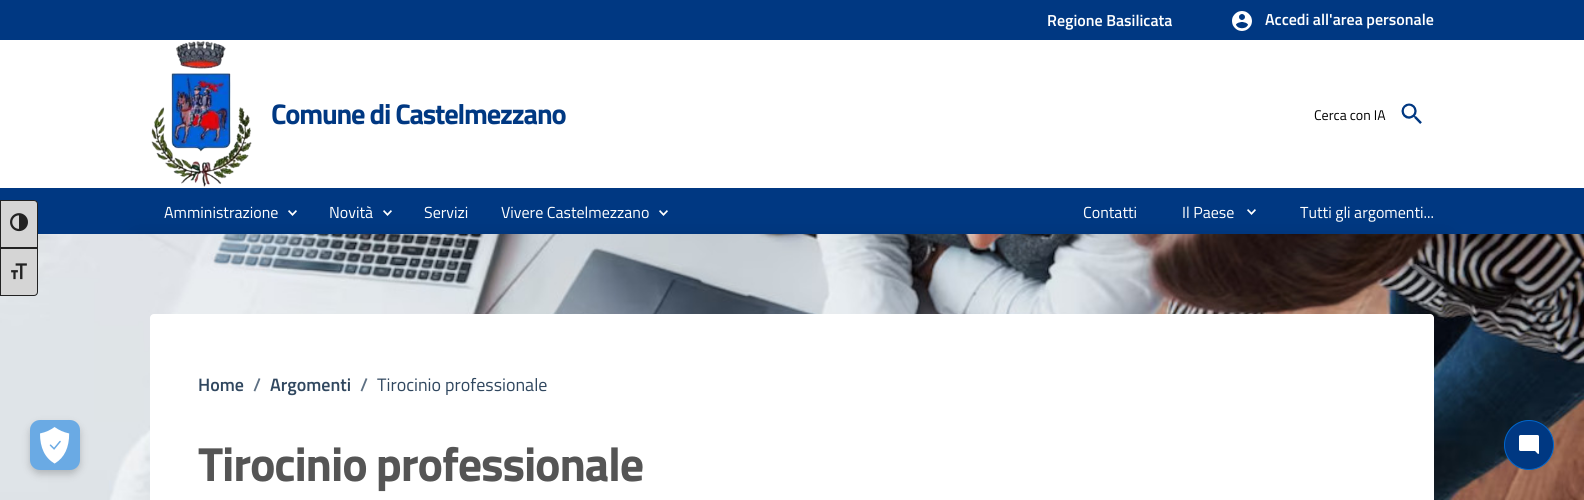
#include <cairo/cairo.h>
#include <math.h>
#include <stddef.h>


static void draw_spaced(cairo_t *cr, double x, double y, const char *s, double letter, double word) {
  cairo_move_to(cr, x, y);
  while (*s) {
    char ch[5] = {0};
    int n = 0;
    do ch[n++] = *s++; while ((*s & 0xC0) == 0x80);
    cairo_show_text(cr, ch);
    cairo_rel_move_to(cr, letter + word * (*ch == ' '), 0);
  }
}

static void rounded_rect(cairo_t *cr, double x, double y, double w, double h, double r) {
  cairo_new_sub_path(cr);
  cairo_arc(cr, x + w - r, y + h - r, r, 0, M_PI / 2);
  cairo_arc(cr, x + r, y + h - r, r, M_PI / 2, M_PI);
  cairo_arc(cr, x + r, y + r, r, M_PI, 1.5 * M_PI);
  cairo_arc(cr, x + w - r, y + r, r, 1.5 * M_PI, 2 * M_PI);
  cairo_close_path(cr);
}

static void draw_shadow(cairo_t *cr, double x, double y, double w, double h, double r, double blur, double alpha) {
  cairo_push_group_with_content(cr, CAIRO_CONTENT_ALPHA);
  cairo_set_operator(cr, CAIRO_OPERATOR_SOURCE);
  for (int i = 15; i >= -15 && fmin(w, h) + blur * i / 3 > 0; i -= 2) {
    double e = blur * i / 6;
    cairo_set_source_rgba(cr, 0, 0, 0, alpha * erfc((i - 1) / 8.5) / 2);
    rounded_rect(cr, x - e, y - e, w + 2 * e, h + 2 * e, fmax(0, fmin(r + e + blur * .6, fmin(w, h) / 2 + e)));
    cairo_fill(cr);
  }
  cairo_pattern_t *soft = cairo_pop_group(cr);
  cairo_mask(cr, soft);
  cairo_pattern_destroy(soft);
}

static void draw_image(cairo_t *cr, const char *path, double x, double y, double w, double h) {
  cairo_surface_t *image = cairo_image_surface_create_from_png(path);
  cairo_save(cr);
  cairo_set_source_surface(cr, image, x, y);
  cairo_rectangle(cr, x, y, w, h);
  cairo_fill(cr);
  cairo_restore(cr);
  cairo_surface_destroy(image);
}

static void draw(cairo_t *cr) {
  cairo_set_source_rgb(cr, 1, 1, 1);
  cairo_paint(cr);
  cairo_set_source_rgb(cr, 0, 56 / 255.0, 130 / 255.0);
  cairo_rectangle(cr, 0, 188, 1584, 46);
  cairo_fill(cr);
  draw_image(cr, "images/6.png", 288, 210, 9, 6);
  draw_image(cr, "images/6.png", 383, 210, 9, 6);
  draw_image(cr, "images/6.png", 659, 210, 9, 6);
  cairo_set_source_rgb(cr, 0, 0, 0);
  draw_shadow(cr, 136, 236, 1312, 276, 0, 10, 0.1);
  draw_image(cr, "images/8.png", 0, 234, 1584, 266);
  cairo_set_source_rgb(cr, 213 / 255.0, 213 / 255.0, 213 / 255.0);
  cairo_new_path(cr);
  cairo_move_to(cr, 0.5, 200.5);
  cairo_line_to(cr, 34, 200.5);
  cairo_curve_to(cr, 36, 200.5, 37.5, 202, 37.5, 204);
  cairo_line_to(cr, 37.5, 247.5);
  cairo_line_to(cr, 0.5, 247.5);
  cairo_close_path(cr);
  cairo_fill_preserve(cr);
  cairo_set_source_rgb(cr, 34 / 255.0, 34 / 255.0, 34 / 255.0);
  cairo_set_line_width(cr, 1);
  cairo_stroke(cr);
  draw_image(cr, "images/1.png", 10, 213, 18, 19);
  cairo_set_source_rgb(cr, 213 / 255.0, 213 / 255.0, 213 / 255.0);
  cairo_new_path(cr);
  cairo_move_to(cr, 0.5, 248.5);
  cairo_line_to(cr, 37.5, 248.5);
  cairo_line_to(cr, 37.5, 292);
  cairo_curve_to(cr, 37.5, 294, 36, 295.5, 34, 295.5);
  cairo_line_to(cr, 0.5, 295.5);
  cairo_close_path(cr);
  cairo_fill_preserve(cr);
  cairo_set_source_rgb(cr, 34 / 255.0, 34 / 255.0, 34 / 255.0);
  cairo_stroke(cr);
  draw_image(cr, "images/2.png", 11, 263, 16, 17);
  cairo_set_source_rgb(cr, 0, 56 / 255.0, 130 / 255.0);
  cairo_rectangle(cr, 0, 0, 1584, 40);
  cairo_fill(cr);
  draw_image(cr, "images/3.png", 1232, 11, 20, 20);
  draw_image(cr, "images/4.png", 151, 41, 101, 146);
  draw_image(cr, "images/5.png", 1401, 103, 21, 21);
  draw_image(cr, "images/7.png", 1247, 209, 9, 6);
  cairo_set_source_rgb(cr, 1, 1, 1);
  rounded_rect(cr, 150, 314, 1284, 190, 4);
  cairo_fill(cr);
  cairo_set_source_rgb(cr, 0, 56 / 255.0, 130 / 255.0);
  cairo_arc(cr, 1529, 445, 24.5, 0, 2 * M_PI);
  cairo_fill_preserve(cr);
  cairo_set_source_rgb(cr, 0, 102 / 255.0, 204 / 255.0);
  cairo_stroke(cr);
  draw_image(cr, "images/9.png", 1519, 435, 20, 19);
  cairo_set_source_rgb(cr, 0, 0, 0);
  draw_shadow(cr, 30, 424, 50, 50, 10, 4, 0.2);
  cairo_set_source_rgb(cr, 106 / 255.0, 170 / 255.0, 228 / 255.0);
  rounded_rect(cr, 30, 420, 50, 50, 10);
  cairo_fill(cr);
  draw_image(cr, "images/10.png", 40, 427, 30, 37);
  cairo_select_font_face(cr, "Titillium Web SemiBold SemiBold", CAIRO_FONT_SLANT_NORMAL, CAIRO_FONT_WEIGHT_NORMAL);
  cairo_set_font_size(cr, 16);
  cairo_set_source_rgb(cr, 1, 1, 1);
  cairo_move_to(cr, 1047, 26);
  cairo_show_text(cr, "Regione Basilicata");
  cairo_move_to(cr, 1265, 25);
  cairo_show_text(cr, "Accedi all'area personale");
  cairo_select_font_face(cr, "Titillium Web", CAIRO_FONT_SLANT_NORMAL, CAIRO_FONT_WEIGHT_BOLD);
  cairo_set_font_size(cr, 28.5);
  cairo_set_source_rgb(cr, 0, 56 / 255.0, 130 / 255.0);
  draw_spaced(cr, 271, 124, "Comune di Castelmezzano", -1.2, 0);
  cairo_select_font_face(cr, "Titillium Web", CAIRO_FONT_SLANT_NORMAL, CAIRO_FONT_WEIGHT_NORMAL);
  cairo_set_font_size(cr, 14);
  cairo_set_source_rgb(cr, 0, 0, 0);
  cairo_move_to(cr, 1314, 120);
  cairo_show_text(cr, "Cerca con IA");
  cairo_set_font_size(cr, 16);
  cairo_set_source_rgb(cr, 1, 1, 1);
  cairo_move_to(cr, 164, 218);
  cairo_show_text(cr, "Amministrazione");
  cairo_move_to(cr, 329, 218);
  cairo_show_text(cr, "Novità");
  cairo_move_to(cr, 424, 218);
  cairo_show_text(cr, "Servizi");
  cairo_move_to(cr, 501, 218);
  cairo_show_text(cr, "Vivere Castelmezzano");
  cairo_move_to(cr, 1083, 218);
  cairo_show_text(cr, "Contatti");
  cairo_move_to(cr, 1182, 218);
  cairo_show_text(cr, "Il Paese");
  cairo_move_to(cr, 1300, 218);
  cairo_show_text(cr, "Tutti gli argomenti...");
  cairo_select_font_face(cr, "Titillium Web SemiBold SemiBold", CAIRO_FONT_SLANT_NORMAL, CAIRO_FONT_WEIGHT_NORMAL);
  cairo_set_font_size(cr, 18);
  cairo_set_source_rgb(cr, 48 / 255.0, 71 / 255.0, 95 / 255.0);
  cairo_move_to(cr, 198, 391);
  cairo_show_text(cr, "Home");
  cairo_set_source_rgb(cr, 93 / 255.0, 112 / 255.0, 131 / 255.0);
  cairo_move_to(cr, 253, 391);
  cairo_show_text(cr, "/");
  cairo_set_source_rgb(cr, 48 / 255.0, 71 / 255.0, 95 / 255.0);
  cairo_move_to(cr, 270, 391);
  cairo_show_text(cr, "Argomenti");
  cairo_set_source_rgb(cr, 93 / 255.0, 112 / 255.0, 131 / 255.0);
  cairo_move_to(cr, 360, 391);
  cairo_show_text(cr, "/");
  cairo_select_font_face(cr, "Titillium Web", CAIRO_FONT_SLANT_NORMAL, CAIRO_FONT_WEIGHT_NORMAL);
  cairo_set_source_rgb(cr, 48 / 255.0, 71 / 255.0, 95 / 255.0);
  cairo_move_to(cr, 377, 391);
  cairo_show_text(cr, "Tirocinio professionale");
  cairo_select_font_face(cr, "Titillium Web", CAIRO_FONT_SLANT_NORMAL, CAIRO_FONT_WEIGHT_BOLD);
  cairo_set_font_size(cr, 48);
  cairo_set_source_rgb(cr, 85 / 255.0, 85 / 255.0, 85 / 255.0);
  draw_spaced(cr, 198, 481, "Tirocinio professionale", -1.2, 0);
}

int main(void) {
  cairo_surface_t *surface = cairo_image_surface_create(CAIRO_FORMAT_RGB24, 1584, 500);
  cairo_t *cr = cairo_create(surface);
  cairo_font_options_t *options = cairo_font_options_create();
  cairo_font_options_set_hint_metrics(options, CAIRO_HINT_METRICS_OFF);
  cairo_font_options_set_hint_style(options, CAIRO_HINT_STYLE_NONE);
  cairo_set_font_options(cr, options);
  cairo_set_miter_limit(cr, 4);
  draw(cr);
  cairo_surface_write_to_png(surface, "out.png");
  cairo_font_options_destroy(options);
  cairo_destroy(cr);
  cairo_surface_destroy(surface);
  return 0;
}
